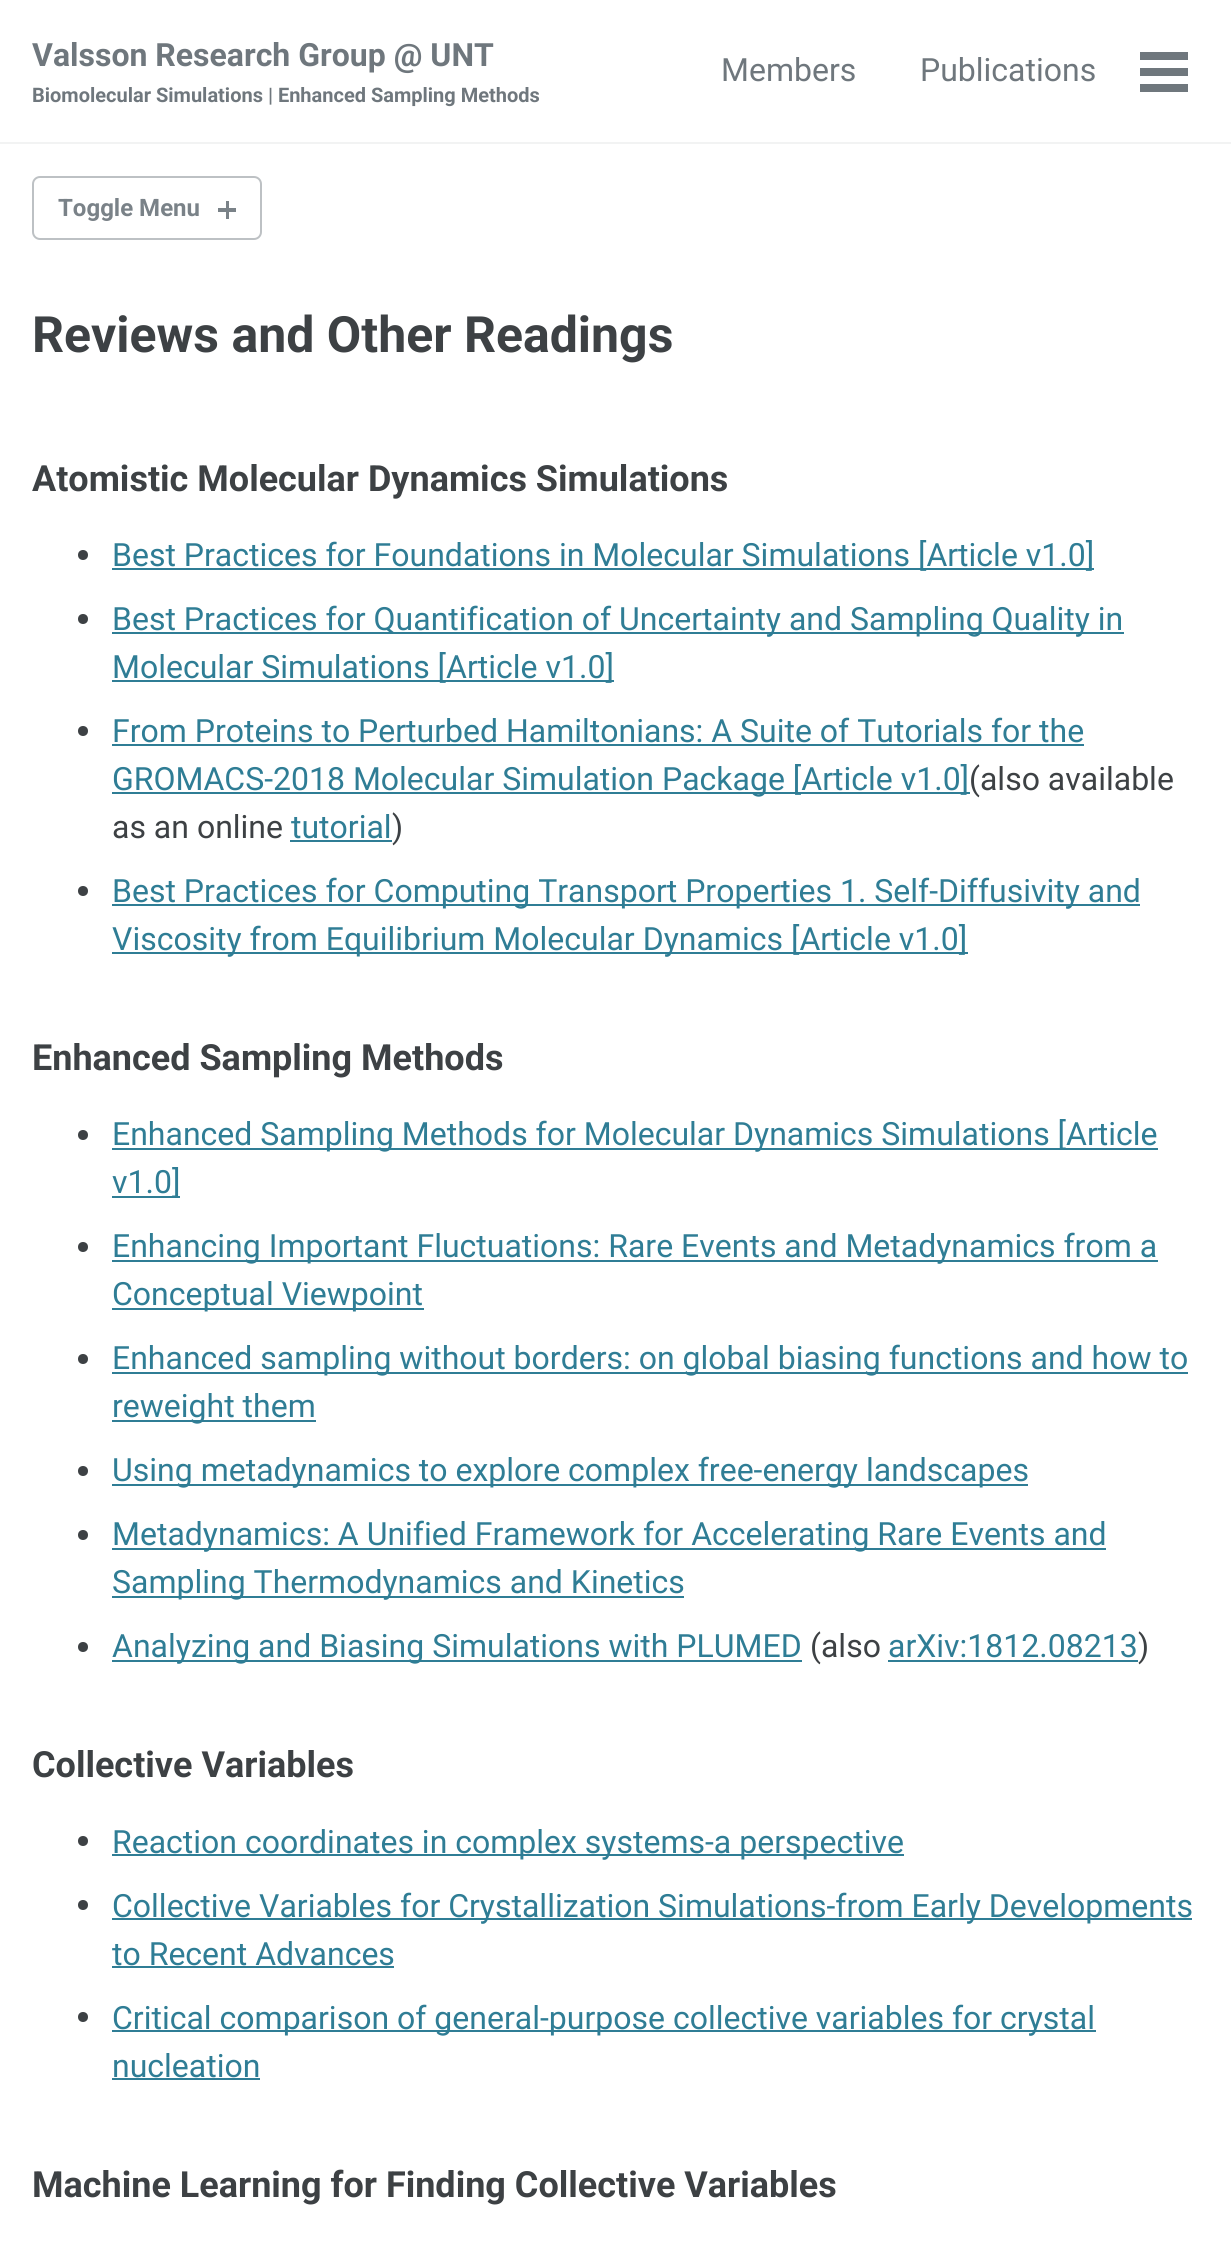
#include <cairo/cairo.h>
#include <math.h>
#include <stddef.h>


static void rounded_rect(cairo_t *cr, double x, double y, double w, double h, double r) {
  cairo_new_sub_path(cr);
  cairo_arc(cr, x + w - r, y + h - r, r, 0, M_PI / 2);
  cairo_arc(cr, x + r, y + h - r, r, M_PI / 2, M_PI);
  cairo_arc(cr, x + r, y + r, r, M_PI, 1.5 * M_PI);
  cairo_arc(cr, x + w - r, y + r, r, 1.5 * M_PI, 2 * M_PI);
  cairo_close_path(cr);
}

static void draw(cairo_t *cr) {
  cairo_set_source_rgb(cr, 1, 1, 1);
  cairo_paint(cr);
  cairo_set_source_rgb(cr, 242 / 255.0, 243 / 255.0, 243 / 255.0);
  cairo_rectangle(cr, 0, 142, 1231, 2);
  cairo_fill(cr);
  cairo_set_source_rgb(cr, 111 / 255.0, 119 / 255.0, 125 / 255.0);
  cairo_rectangle(cr, 1140, 68, 48, 8);
  cairo_fill(cr);
  cairo_rectangle(cr, 1140, 52, 48, 8);
  cairo_fill(cr);
  cairo_rectangle(cr, 1140, 84, 48, 8);
  cairo_fill(cr);
  rounded_rect(cr, 33, 177, 228, 62, 7);
  cairo_set_source_rgb(cr, 189 / 255.0, 193 / 255.0, 196 / 255.0);
  cairo_stroke(cr);
  cairo_set_source_rgb(cr, 122 / 255.0, 130 / 255.0, 136 / 255.0);
  cairo_rectangle(cr, 218, 208, 18, 4);
  cairo_fill(cr);
  cairo_rectangle(cr, 226, 201, 3, 18);
  cairo_fill(cr);
  cairo_set_source_rgb(cr, 61 / 255.0, 65 / 255.0, 68 / 255.0);
  cairo_arc(cr, 83, 555, 5, 0, 2 * M_PI);
  cairo_fill(cr);
  cairo_set_source_rgb(cr, 47 / 255.0, 125 / 255.0, 149 / 255.0);
  cairo_rectangle(cr, 112, 568, 982, 2);
  cairo_fill(cr);
  cairo_set_source_rgb(cr, 61 / 255.0, 65 / 255.0, 68 / 255.0);
  cairo_arc(cr, 83, 619, 5, 0, 2 * M_PI);
  cairo_fill(cr);
  cairo_set_source_rgb(cr, 47 / 255.0, 125 / 255.0, 149 / 255.0);
  cairo_rectangle(cr, 112, 632, 1012, 2);
  cairo_fill(cr);
  cairo_rectangle(cr, 112, 680, 502, 2);
  cairo_fill(cr);
  cairo_set_source_rgb(cr, 61 / 255.0, 65 / 255.0, 68 / 255.0);
  cairo_arc(cr, 83, 731, 5, 0, 2 * M_PI);
  cairo_fill(cr);
  cairo_set_source_rgb(cr, 47 / 255.0, 125 / 255.0, 149 / 255.0);
  cairo_rectangle(cr, 112, 744, 972, 2);
  cairo_fill(cr);
  cairo_rectangle(cr, 112, 792, 858, 2);
  cairo_fill(cr);
  cairo_rectangle(cr, 290, 840, 102, 2);
  cairo_fill(cr);
  cairo_set_source_rgb(cr, 61 / 255.0, 65 / 255.0, 68 / 255.0);
  cairo_arc(cr, 83, 891, 5, 0, 2 * M_PI);
  cairo_fill(cr);
  cairo_set_source_rgb(cr, 47 / 255.0, 125 / 255.0, 149 / 255.0);
  cairo_rectangle(cr, 112, 904, 1028, 2);
  cairo_fill(cr);
  cairo_rectangle(cr, 112, 952, 856, 2);
  cairo_fill(cr);
  cairo_set_source_rgb(cr, 61 / 255.0, 65 / 255.0, 68 / 255.0);
  cairo_arc(cr, 83, 1135, 5, 0, 2 * M_PI);
  cairo_fill(cr);
  cairo_set_source_rgb(cr, 47 / 255.0, 125 / 255.0, 149 / 255.0);
  cairo_rectangle(cr, 112, 1148, 1046, 2);
  cairo_fill(cr);
  cairo_rectangle(cr, 112, 1196, 68, 2);
  cairo_fill(cr);
  cairo_set_source_rgb(cr, 61 / 255.0, 65 / 255.0, 68 / 255.0);
  cairo_arc(cr, 83, 1247, 5, 0, 2 * M_PI);
  cairo_fill(cr);
  cairo_set_source_rgb(cr, 47 / 255.0, 125 / 255.0, 149 / 255.0);
  cairo_rectangle(cr, 112, 1260, 1046, 2);
  cairo_fill(cr);
  cairo_rectangle(cr, 112, 1308, 312, 2);
  cairo_fill(cr);
  cairo_set_source_rgb(cr, 61 / 255.0, 65 / 255.0, 68 / 255.0);
  cairo_arc(cr, 83, 1359, 5, 0, 2 * M_PI);
  cairo_fill(cr);
  cairo_set_source_rgb(cr, 47 / 255.0, 125 / 255.0, 149 / 255.0);
  cairo_rectangle(cr, 112, 1372, 1076, 2);
  cairo_fill(cr);
  cairo_rectangle(cr, 112, 1420, 204, 2);
  cairo_fill(cr);
  cairo_set_source_rgb(cr, 61 / 255.0, 65 / 255.0, 68 / 255.0);
  cairo_arc(cr, 83, 1471, 5, 0, 2 * M_PI);
  cairo_fill(cr);
  cairo_set_source_rgb(cr, 47 / 255.0, 125 / 255.0, 149 / 255.0);
  cairo_rectangle(cr, 112, 1484, 916, 2);
  cairo_fill(cr);
  cairo_set_source_rgb(cr, 61 / 255.0, 65 / 255.0, 68 / 255.0);
  cairo_arc(cr, 83, 1535, 5, 0, 2 * M_PI);
  cairo_fill(cr);
  cairo_set_source_rgb(cr, 47 / 255.0, 125 / 255.0, 149 / 255.0);
  cairo_rectangle(cr, 112, 1548, 994, 2);
  cairo_fill(cr);
  cairo_rectangle(cr, 112, 1596, 572, 2);
  cairo_fill(cr);
  cairo_set_source_rgb(cr, 61 / 255.0, 65 / 255.0, 68 / 255.0);
  cairo_arc(cr, 83, 1647, 5, 0, 2 * M_PI);
  cairo_fill(cr);
  cairo_set_source_rgb(cr, 47 / 255.0, 125 / 255.0, 149 / 255.0);
  cairo_rectangle(cr, 112, 1660, 690, 2);
  cairo_fill(cr);
  cairo_rectangle(cr, 888, 1660, 250, 2);
  cairo_fill(cr);
  cairo_set_source_rgb(cr, 61 / 255.0, 65 / 255.0, 68 / 255.0);
  cairo_arc(cr, 83, 1841, 5, 0, 2 * M_PI);
  cairo_fill(cr);
  cairo_set_source_rgb(cr, 47 / 255.0, 125 / 255.0, 149 / 255.0);
  cairo_rectangle(cr, 112, 1854, 792, 2);
  cairo_fill(cr);
  cairo_set_source_rgb(cr, 61 / 255.0, 65 / 255.0, 68 / 255.0);
  cairo_arc(cr, 83, 1905, 5, 0, 2 * M_PI);
  cairo_fill(cr);
  cairo_set_source_rgb(cr, 47 / 255.0, 125 / 255.0, 149 / 255.0);
  cairo_rectangle(cr, 112, 1918, 1080, 2);
  cairo_fill(cr);
  cairo_rectangle(cr, 112, 1966, 282, 2);
  cairo_fill(cr);
  cairo_set_source_rgb(cr, 61 / 255.0, 65 / 255.0, 68 / 255.0);
  cairo_arc(cr, 83, 2017, 5, 0, 2 * M_PI);
  cairo_fill(cr);
  cairo_set_source_rgb(cr, 47 / 255.0, 125 / 255.0, 149 / 255.0);
  cairo_rectangle(cr, 112, 2030, 984, 2);
  cairo_fill(cr);
  cairo_rectangle(cr, 112, 2078, 148, 2);
  cairo_fill(cr);
  cairo_select_font_face(cr, "Roboto", CAIRO_FONT_SLANT_NORMAL, CAIRO_FONT_WEIGHT_BOLD);
  cairo_set_font_size(cr, 32);
  cairo_set_source_rgb(cr, 111 / 255.0, 119 / 255.0, 125 / 255.0);
  cairo_move_to(cr, 32, 66);
  cairo_show_text(cr, "Valsson Research Group @ UNT");
  cairo_set_font_size(cr, 20);
  cairo_move_to(cr, 32, 102);
  cairo_show_text(cr, "Biomolecular Simulations | Enhanced Sampling Methods");
  cairo_select_font_face(cr, "Roboto", CAIRO_FONT_SLANT_NORMAL, CAIRO_FONT_WEIGHT_NORMAL);
  cairo_set_font_size(cr, 32);
  cairo_move_to(cr, 721, 81);
  cairo_show_text(cr, "Members");
  cairo_move_to(cr, 920, 81);
  cairo_show_text(cr, "Publications");
  cairo_select_font_face(cr, "Roboto", CAIRO_FONT_SLANT_NORMAL, CAIRO_FONT_WEIGHT_BOLD);
  cairo_set_font_size(cr, 24);
  cairo_set_source_rgb(cr, 122 / 255.0, 130 / 255.0, 136 / 255.0);
  cairo_move_to(cr, 58, 216);
  cairo_show_text(cr, "Toggle Menu");
  cairo_set_font_size(cr, 50);
  cairo_set_source_rgb(cr, 61 / 255.0, 65 / 255.0, 68 / 255.0);
  cairo_move_to(cr, 32, 352);
  cairo_show_text(cr, "Reviews and Other Readings");
  cairo_set_font_size(cr, 36);
  cairo_move_to(cr, 32, 491);
  cairo_show_text(cr, "Atomistic Molecular Dynamics Simulations");
  cairo_select_font_face(cr, "Roboto", CAIRO_FONT_SLANT_NORMAL, CAIRO_FONT_WEIGHT_NORMAL);
  cairo_set_font_size(cr, 32);
  cairo_set_source_rgb(cr, 47 / 255.0, 125 / 255.0, 149 / 255.0);
  cairo_move_to(cr, 112, 566);
  cairo_show_text(cr, "Best Practices for Foundations in Molecular Simulations [Article v1.0]");
  cairo_move_to(cr, 112, 630);
  cairo_show_text(cr, "Best Practices for Quantification of Uncertainty and Sampling Quality in");
  cairo_move_to(cr, 112, 678);
  cairo_show_text(cr, "Molecular Simulations [Article v1.0]");
  cairo_move_to(cr, 112, 742);
  cairo_show_text(cr, "From Proteins to Perturbed Hamiltonians: A Suite of Tutorials for the");
  cairo_move_to(cr, 112, 790);
  cairo_show_text(cr, "GROMACS-2018 Molecular Simulation Package [Article v1.0]");
  cairo_set_source_rgb(cr, 61 / 255.0, 65 / 255.0, 68 / 255.0);
  cairo_move_to(cr, 969, 790);
  cairo_show_text(cr, "(also available");
  cairo_move_to(cr, 112, 838);
  cairo_show_text(cr, "as an online");
  cairo_set_source_rgb(cr, 47 / 255.0, 125 / 255.0, 149 / 255.0);
  cairo_move_to(cr, 291, 838);
  cairo_show_text(cr, "tutorial");
  cairo_set_source_rgb(cr, 61 / 255.0, 65 / 255.0, 68 / 255.0);
  cairo_move_to(cr, 392, 838);
  cairo_show_text(cr, ")");
  cairo_set_source_rgb(cr, 47 / 255.0, 125 / 255.0, 149 / 255.0);
  cairo_move_to(cr, 112, 902);
  cairo_show_text(cr, "Best Practices for Computing Transport Properties 1. Self-Diffusivity and");
  cairo_move_to(cr, 112, 950);
  cairo_show_text(cr, "Viscosity from Equilibrium Molecular Dynamics [Article v1.0]");
  cairo_select_font_face(cr, "Roboto", CAIRO_FONT_SLANT_NORMAL, CAIRO_FONT_WEIGHT_BOLD);
  cairo_set_font_size(cr, 36);
  cairo_set_source_rgb(cr, 61 / 255.0, 65 / 255.0, 68 / 255.0);
  cairo_move_to(cr, 32, 1070);
  cairo_show_text(cr, "Enhanced Sampling Methods");
  cairo_select_font_face(cr, "Roboto", CAIRO_FONT_SLANT_NORMAL, CAIRO_FONT_WEIGHT_NORMAL);
  cairo_set_font_size(cr, 32);
  cairo_set_source_rgb(cr, 47 / 255.0, 125 / 255.0, 149 / 255.0);
  cairo_move_to(cr, 112, 1145);
  cairo_show_text(cr, "Enhanced Sampling Methods for Molecular Dynamics Simulations [Article");
  cairo_move_to(cr, 112, 1193);
  cairo_show_text(cr, "v1.0]");
  cairo_move_to(cr, 112, 1257);
  cairo_show_text(cr, "Enhancing Important Fluctuations: Rare Events and Metadynamics from a");
  cairo_move_to(cr, 112, 1305);
  cairo_show_text(cr, "Conceptual Viewpoint");
  cairo_move_to(cr, 112, 1369);
  cairo_show_text(cr, "Enhanced sampling without borders: on global biasing functions and how to");
  cairo_move_to(cr, 112, 1417);
  cairo_show_text(cr, "reweight them");
  cairo_move_to(cr, 112, 1481);
  cairo_show_text(cr, "Using metadynamics to explore complex free-energy landscapes");
  cairo_move_to(cr, 112, 1545);
  cairo_show_text(cr, "Metadynamics: A Unified Framework for Accelerating Rare Events and");
  cairo_move_to(cr, 112, 1593);
  cairo_show_text(cr, "Sampling Thermodynamics and Kinetics");
  cairo_move_to(cr, 112, 1657);
  cairo_show_text(cr, "Analyzing and Biasing Simulations with PLUMED");
  cairo_set_source_rgb(cr, 61 / 255.0, 65 / 255.0, 68 / 255.0);
  cairo_move_to(cr, 810, 1657);
  cairo_show_text(cr, "(also");
  cairo_set_source_rgb(cr, 47 / 255.0, 125 / 255.0, 149 / 255.0);
  cairo_move_to(cr, 888, 1657);
  cairo_show_text(cr, "arXiv:1812.08213");
  cairo_set_source_rgb(cr, 61 / 255.0, 65 / 255.0, 68 / 255.0);
  cairo_move_to(cr, 1138, 1657);
  cairo_show_text(cr, ")");
  cairo_select_font_face(cr, "Roboto", CAIRO_FONT_SLANT_NORMAL, CAIRO_FONT_WEIGHT_BOLD);
  cairo_set_font_size(cr, 36);
  cairo_move_to(cr, 32, 1777);
  cairo_show_text(cr, "Collective Variables");
  cairo_select_font_face(cr, "Roboto", CAIRO_FONT_SLANT_NORMAL, CAIRO_FONT_WEIGHT_NORMAL);
  cairo_set_font_size(cr, 32);
  cairo_set_source_rgb(cr, 47 / 255.0, 125 / 255.0, 149 / 255.0);
  cairo_move_to(cr, 112, 1853);
  cairo_show_text(cr, "Reaction coordinates in complex systems-a perspective");
  cairo_move_to(cr, 112, 1917);
  cairo_show_text(cr, "Collective Variables for Crystallization Simulations-from Early Developments");
  cairo_move_to(cr, 112, 1965);
  cairo_show_text(cr, "to Recent Advances");
  cairo_move_to(cr, 112, 2029);
  cairo_show_text(cr, "Critical comparison of general-purpose collective variables for crystal");
  cairo_move_to(cr, 112, 2077);
  cairo_show_text(cr, "nucleation");
  cairo_select_font_face(cr, "Roboto", CAIRO_FONT_SLANT_NORMAL, CAIRO_FONT_WEIGHT_BOLD);
  cairo_set_font_size(cr, 36);
  cairo_set_source_rgb(cr, 61 / 255.0, 65 / 255.0, 68 / 255.0);
  cairo_move_to(cr, 32, 2197);
  cairo_show_text(cr, "Machine Learning for Finding Collective Variables");
}

int main(void) {
  cairo_surface_t *surface = cairo_image_surface_create(CAIRO_FORMAT_RGB24, 1231, 2248);
  cairo_t *cr = cairo_create(surface);
  cairo_font_options_t *options = cairo_font_options_create();
  cairo_font_options_set_hint_metrics(options, CAIRO_HINT_METRICS_OFF);
  cairo_font_options_set_hint_style(options, CAIRO_HINT_STYLE_NONE);
  cairo_set_font_options(cr, options);
  cairo_set_miter_limit(cr, 4);
  draw(cr);
  cairo_surface_write_to_png(surface, "out.png");
  cairo_font_options_destroy(options);
  cairo_destroy(cr);
  cairo_surface_destroy(surface);
  return 0;
}
